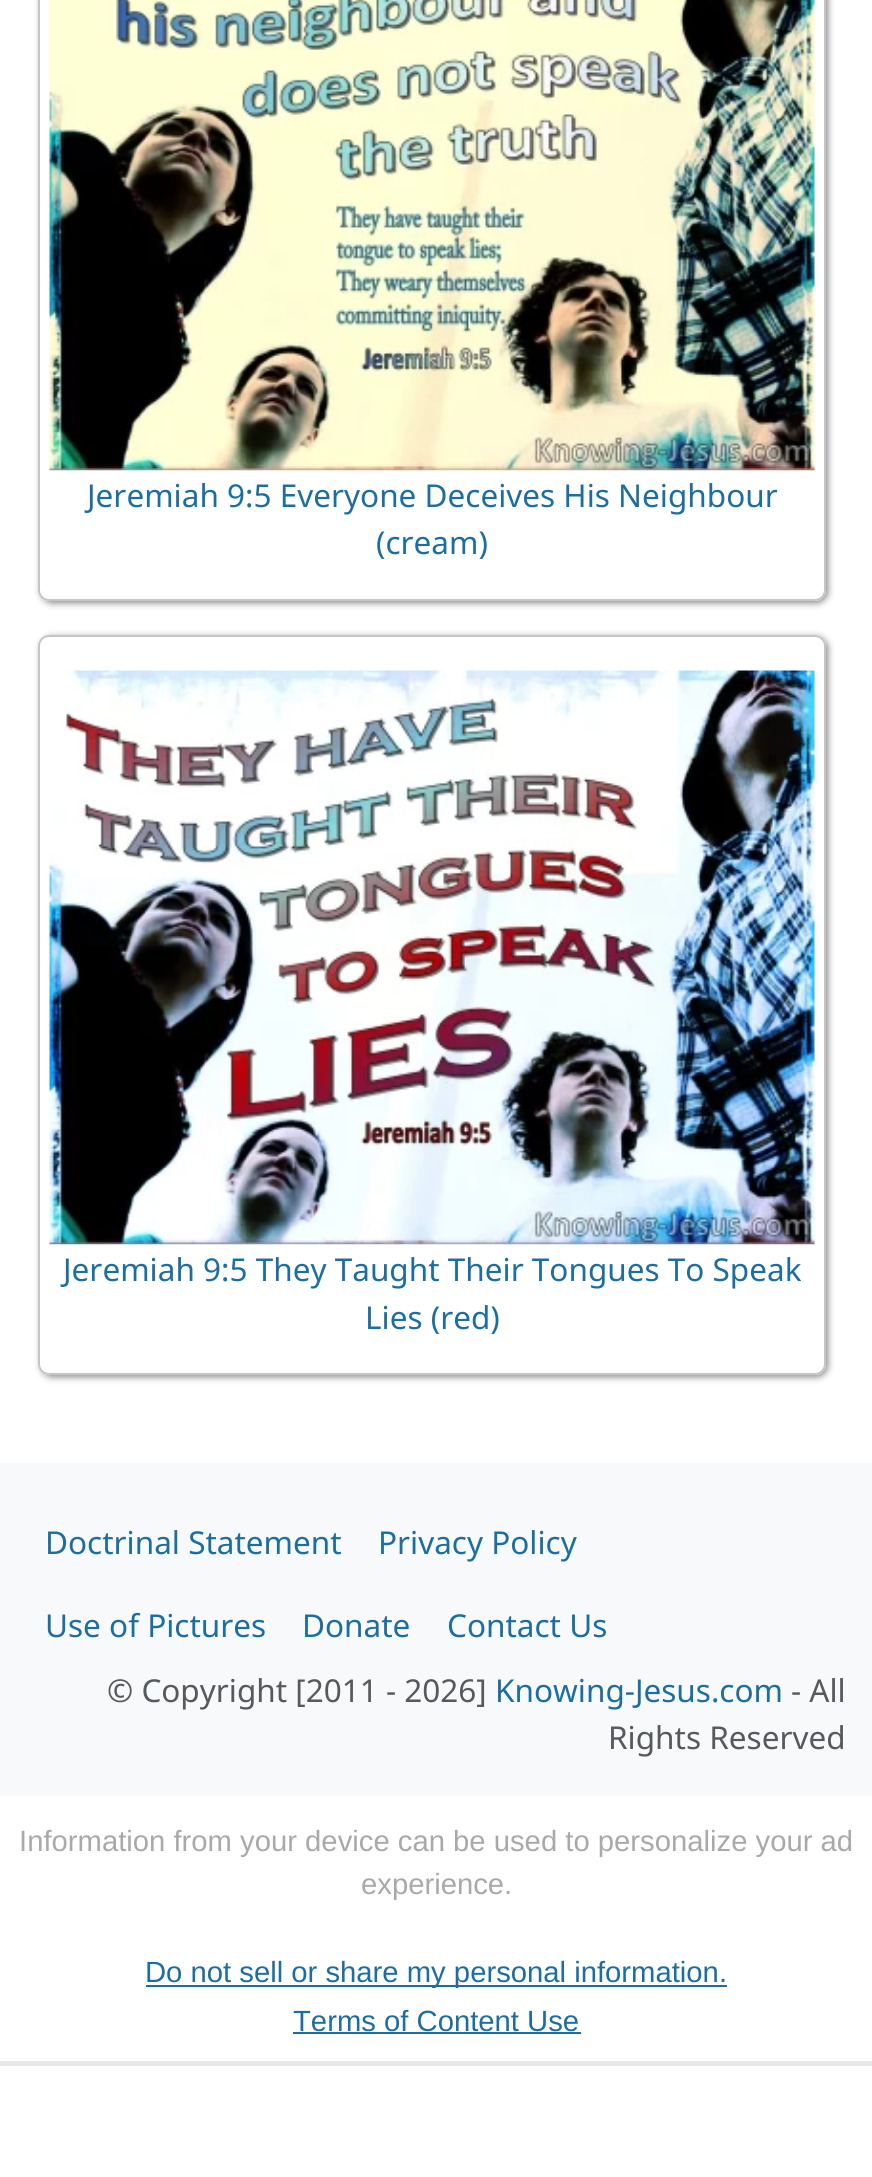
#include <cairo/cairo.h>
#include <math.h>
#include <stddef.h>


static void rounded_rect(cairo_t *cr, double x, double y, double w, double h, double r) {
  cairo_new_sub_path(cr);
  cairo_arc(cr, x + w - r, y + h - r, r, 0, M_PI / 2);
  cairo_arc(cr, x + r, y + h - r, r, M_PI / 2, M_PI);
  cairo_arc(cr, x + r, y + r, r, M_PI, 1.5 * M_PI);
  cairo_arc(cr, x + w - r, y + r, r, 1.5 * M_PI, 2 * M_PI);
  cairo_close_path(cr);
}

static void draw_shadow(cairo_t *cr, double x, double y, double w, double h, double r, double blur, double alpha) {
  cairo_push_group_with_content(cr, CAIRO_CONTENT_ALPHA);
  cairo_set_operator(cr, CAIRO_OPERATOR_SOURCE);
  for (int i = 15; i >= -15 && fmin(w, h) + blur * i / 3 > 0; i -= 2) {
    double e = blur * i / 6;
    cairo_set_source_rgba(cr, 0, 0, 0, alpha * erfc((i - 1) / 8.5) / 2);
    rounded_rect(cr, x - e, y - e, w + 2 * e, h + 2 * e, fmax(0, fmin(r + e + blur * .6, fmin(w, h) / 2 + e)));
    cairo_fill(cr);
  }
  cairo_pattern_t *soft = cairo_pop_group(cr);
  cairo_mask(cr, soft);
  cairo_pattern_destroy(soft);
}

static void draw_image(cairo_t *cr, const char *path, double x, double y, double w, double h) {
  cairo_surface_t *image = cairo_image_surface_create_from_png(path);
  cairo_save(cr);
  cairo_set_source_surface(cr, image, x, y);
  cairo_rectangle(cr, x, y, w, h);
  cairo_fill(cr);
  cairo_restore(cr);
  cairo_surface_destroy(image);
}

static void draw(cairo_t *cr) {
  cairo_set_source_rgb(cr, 1, 1, 1);
  cairo_paint(cr);
  cairo_save(cr);
  cairo_set_fill_rule(cr, CAIRO_FILL_RULE_EVEN_ODD);
  cairo_new_path(cr);
  cairo_move_to(cr, 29, 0);
  cairo_line_to(cr, 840, 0);
  cairo_line_to(cr, 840, 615);
  cairo_line_to(cr, 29, 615);
  cairo_close_path(cr);
  cairo_move_to(cr, 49, -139);
  cairo_line_to(cr, 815, -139);
  cairo_curve_to(cr, 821, -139, 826, -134, 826, -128);
  cairo_line_to(cr, 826, 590);
  cairo_curve_to(cr, 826, 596, 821, 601, 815, 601);
  cairo_line_to(cr, 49, 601);
  cairo_curve_to(cr, 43, 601, 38, 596, 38, 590);
  cairo_line_to(cr, 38, -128);
  cairo_curve_to(cr, 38, -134, 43, -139, 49, -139);
  cairo_close_path(cr);
  cairo_clip(cr);
  cairo_set_source_rgb(cr, 136 / 255.0, 136 / 255.0, 136 / 255.0);
  draw_shadow(cr, 41, -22, 787, 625, 11, 3.5, 1);
  cairo_restore(cr);
  rounded_rect(cr, 39, -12, 786, 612, 10);
  cairo_set_source_rgb(cr, 197 / 255.0, 197 / 255.0, 197 / 255.0);
  cairo_stroke(cr);
  draw_image(cr, "images/1.png", 49, 0, 766, 471);
  cairo_save(cr);
  cairo_set_fill_rule(cr, CAIRO_FILL_RULE_EVEN_ODD);
  cairo_new_path(cr);
  cairo_move_to(cr, 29, 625);
  cairo_line_to(cr, 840, 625);
  cairo_line_to(cr, 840, 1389);
  cairo_line_to(cr, 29, 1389);
  cairo_close_path(cr);
  cairo_move_to(cr, 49, 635);
  cairo_line_to(cr, 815, 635);
  cairo_curve_to(cr, 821, 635, 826, 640, 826, 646);
  cairo_line_to(cr, 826, 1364);
  cairo_curve_to(cr, 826, 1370, 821, 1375, 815, 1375);
  cairo_line_to(cr, 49, 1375);
  cairo_curve_to(cr, 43, 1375, 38, 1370, 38, 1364);
  cairo_line_to(cr, 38, 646);
  cairo_curve_to(cr, 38, 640, 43, 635, 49, 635);
  cairo_close_path(cr);
  cairo_clip(cr);
  cairo_set_source_rgb(cr, 136 / 255.0, 136 / 255.0, 136 / 255.0);
  draw_shadow(cr, 41, 637, 787, 740, 11, 3.5, 1);
  cairo_restore(cr);
  rounded_rect(cr, 39, 636, 786, 738, 10);
  cairo_stroke(cr);
  draw_image(cr, "images/2.png", 49, 670, 766, 575);
  cairo_set_source_rgb(cr, 248 / 255.0, 249 / 255.0, 250 / 255.0);
  cairo_rectangle(cr, 0, 1463, 872, 333);
  cairo_fill(cr);
  cairo_set_source_rgb(cr, 28 / 255.0, 110 / 255.0, 160 / 255.0);
  cairo_rectangle(cr, 146, 1985, 581, 2);
  cairo_fill(cr);
  cairo_rectangle(cr, 293, 2032, 288, 2);
  cairo_fill(cr);
  cairo_set_source_rgb(cr, 231 / 255.0, 231 / 255.0, 231 / 255.0);
  cairo_rectangle(cr, 0, 2061, 872, 5);
  cairo_fill(cr);
  cairo_select_font_face(cr, "Noto Sans", CAIRO_FONT_SLANT_NORMAL, CAIRO_FONT_WEIGHT_NORMAL);
  cairo_set_font_size(cr, 31.5);
  cairo_set_source_rgb(cr, 28 / 255.0, 110 / 255.0, 160 / 255.0);
  cairo_move_to(cr, 87, 507);
  cairo_show_text(cr, "Jeremiah 9:5 Everyone Deceives His Neighbour");
  cairo_move_to(cr, 376, 554);
  cairo_show_text(cr, "(cream)");
  cairo_move_to(cr, 63, 1281);
  cairo_show_text(cr, "Jeremiah 9:5 They Taught Their Tongues To Speak");
  cairo_move_to(cr, 365, 1329);
  cairo_show_text(cr, "Lies (red)");
  cairo_move_to(cr, 45, 1554);
  cairo_show_text(cr, "Doctrinal Statement");
  cairo_move_to(cr, 378, 1554);
  cairo_show_text(cr, "Privacy Policy");
  cairo_move_to(cr, 45, 1637);
  cairo_show_text(cr, "Use of Pictures");
  cairo_move_to(cr, 302, 1637);
  cairo_show_text(cr, "Donate");
  cairo_move_to(cr, 447, 1637);
  cairo_show_text(cr, "Contact Us");
  cairo_set_source_rgb(cr, 87 / 255.0, 90 / 255.0, 93 / 255.0);
  cairo_move_to(cr, 107, 1702);
  cairo_show_text(cr, "© Copyright [2011 - 2026]");
  cairo_set_source_rgb(cr, 28 / 255.0, 110 / 255.0, 160 / 255.0);
  cairo_move_to(cr, 495, 1702);
  cairo_show_text(cr, "Knowing-Jesus.com");
  cairo_set_source_rgb(cr, 87 / 255.0, 90 / 255.0, 93 / 255.0);
  cairo_move_to(cr, 791, 1702);
  cairo_show_text(cr, "- All");
  cairo_move_to(cr, 608, 1749);
  cairo_show_text(cr, "Rights Reserved");
  cairo_select_font_face(cr, "Liberation Sans", CAIRO_FONT_SLANT_NORMAL, CAIRO_FONT_WEIGHT_NORMAL);
  cairo_set_font_size(cr, 29.25);
  cairo_set_source_rgb(cr, 169 / 255.0, 169 / 255.0, 169 / 255.0);
  cairo_move_to(cr, 19, 1851);
  cairo_show_text(cr, "Information from your device can be used to personalize your ad");
  cairo_move_to(cr, 361, 1894);
  cairo_show_text(cr, "experience.");
  cairo_set_source_rgb(cr, 28 / 255.0, 110 / 255.0, 160 / 255.0);
  cairo_move_to(cr, 145, 1982);
  cairo_show_text(cr, "Do not sell or share my personal information.");
  cairo_move_to(cr, 293, 2031);
  cairo_show_text(cr, "Terms of Content Use");
}

int main(void) {
  cairo_surface_t *surface = cairo_image_surface_create(CAIRO_FORMAT_RGB24, 872, 2177);
  cairo_t *cr = cairo_create(surface);
  cairo_font_options_t *options = cairo_font_options_create();
  cairo_font_options_set_hint_metrics(options, CAIRO_HINT_METRICS_OFF);
  cairo_font_options_set_hint_style(options, CAIRO_HINT_STYLE_NONE);
  cairo_set_font_options(cr, options);
  cairo_set_miter_limit(cr, 4);
  draw(cr);
  cairo_surface_write_to_png(surface, "out.png");
  cairo_font_options_destroy(options);
  cairo_destroy(cr);
  cairo_surface_destroy(surface);
  return 0;
}
